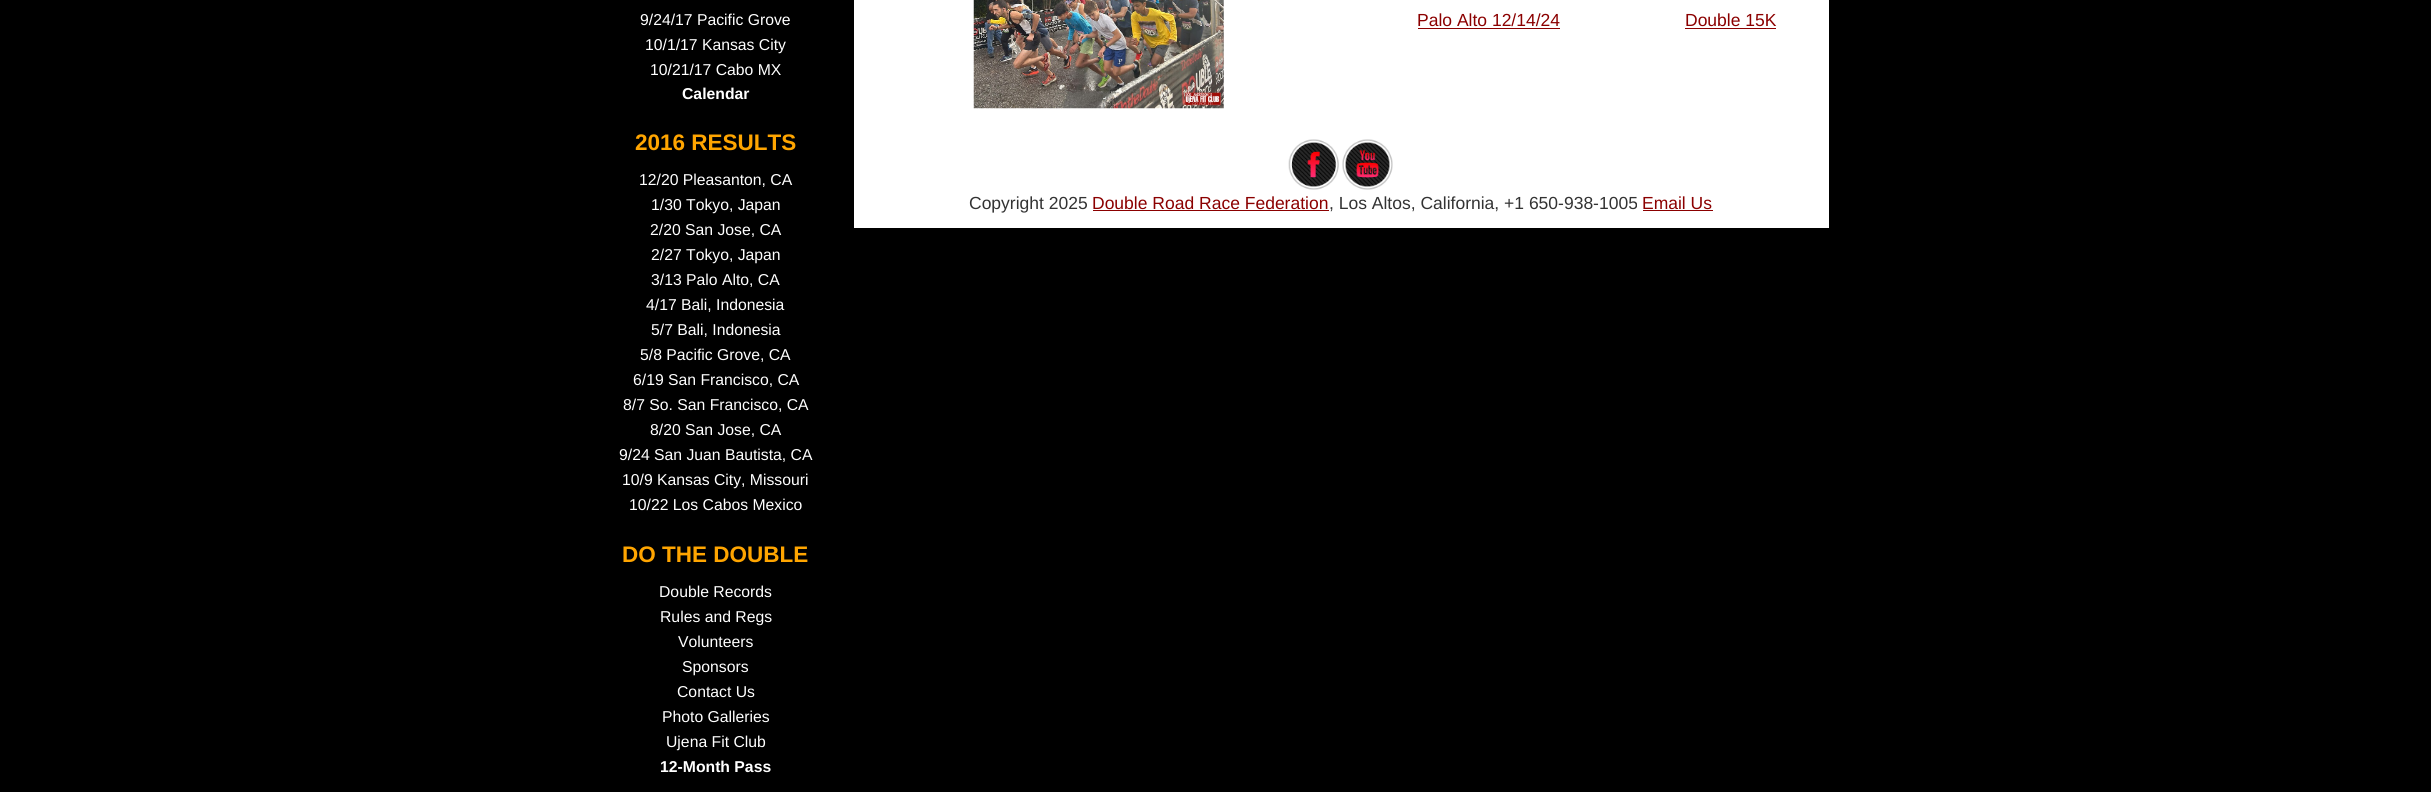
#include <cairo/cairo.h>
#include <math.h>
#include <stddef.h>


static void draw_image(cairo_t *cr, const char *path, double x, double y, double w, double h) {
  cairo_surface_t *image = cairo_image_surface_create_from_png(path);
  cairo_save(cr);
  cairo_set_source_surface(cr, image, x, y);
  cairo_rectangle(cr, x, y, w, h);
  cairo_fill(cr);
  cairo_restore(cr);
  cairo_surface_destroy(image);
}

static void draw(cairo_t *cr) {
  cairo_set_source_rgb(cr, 0, 0, 0);
  cairo_paint(cr);
  cairo_set_source_rgb(cr, 1, 1, 1);
  cairo_rectangle(cr, 854, 0, 975, 228);
  cairo_fill(cr);
  draw_image(cr, "images/1.png", 973, 0, 251, 109);
  cairo_set_source_rgb(cr, 139 / 255.0, 0, 0);
  cairo_rectangle(cr, 1418, 28, 142, 1);
  cairo_fill(cr);
  cairo_rectangle(cr, 1685, 28, 91, 1);
  cairo_fill(cr);
  draw_image(cr, "images/2.png", 1288, 139, 51, 51);
  draw_image(cr, "images/3.png", 1342, 139, 51, 51);
  cairo_rectangle(cr, 1093, 210, 236, 1);
  cairo_fill(cr);
  cairo_rectangle(cr, 1643, 210, 70, 1);
  cairo_fill(cr);
  cairo_select_font_face(cr, "Liberation Sans", CAIRO_FONT_SLANT_NORMAL, CAIRO_FONT_WEIGHT_NORMAL);
  cairo_set_font_size(cr, 15.75);
  cairo_set_source_rgb(cr, 1, 1, 1);
  cairo_move_to(cr, 640, 25);
  cairo_show_text(cr, "9/24/17 Pacific Grove");
  cairo_move_to(cr, 645, 50);
  cairo_show_text(cr, "10/1/17 Kansas City");
  cairo_move_to(cr, 650, 75);
  cairo_show_text(cr, "10/21/17 Cabo MX");
  cairo_select_font_face(cr, "Liberation Sans", CAIRO_FONT_SLANT_NORMAL, CAIRO_FONT_WEIGHT_BOLD);
  cairo_move_to(cr, 682, 99);
  cairo_show_text(cr, "Calendar");
  cairo_set_font_size(cr, 22.5);
  cairo_set_source_rgb(cr, 1, 165 / 255.0, 0);
  cairo_move_to(cr, 635, 150);
  cairo_show_text(cr, "2016 RESULTS");
  cairo_select_font_face(cr, "Liberation Sans", CAIRO_FONT_SLANT_NORMAL, CAIRO_FONT_WEIGHT_NORMAL);
  cairo_set_font_size(cr, 15.75);
  cairo_set_source_rgb(cr, 1, 1, 1);
  cairo_move_to(cr, 639, 185);
  cairo_show_text(cr, "12/20 Pleasanton, CA");
  cairo_move_to(cr, 651, 210);
  cairo_show_text(cr, "1/30 Tokyo, Japan");
  cairo_move_to(cr, 650, 235);
  cairo_show_text(cr, "2/20 San Jose, CA");
  cairo_move_to(cr, 651, 260);
  cairo_show_text(cr, "2/27 Tokyo, Japan");
  cairo_move_to(cr, 651, 285);
  cairo_show_text(cr, "3/13 Palo Alto, CA");
  cairo_move_to(cr, 646, 310);
  cairo_show_text(cr, "4/17 Bali, Indonesia");
  cairo_move_to(cr, 651, 335);
  cairo_show_text(cr, "5/7 Bali, Indonesia");
  cairo_move_to(cr, 640, 360);
  cairo_show_text(cr, "5/8 Pacific Grove, CA");
  cairo_move_to(cr, 633, 385);
  cairo_show_text(cr, "6/19 San Francisco, CA");
  cairo_move_to(cr, 623, 410);
  cairo_show_text(cr, "8/7 So. San Francisco, CA");
  cairo_move_to(cr, 650, 435);
  cairo_show_text(cr, "8/20 San Jose, CA");
  cairo_move_to(cr, 619, 460);
  cairo_show_text(cr, "9/24 San Juan Bautista, CA");
  cairo_move_to(cr, 622, 485);
  cairo_show_text(cr, "10/9 Kansas City, Missouri");
  cairo_move_to(cr, 629, 510);
  cairo_show_text(cr, "10/22 Los Cabos Mexico");
  cairo_select_font_face(cr, "Liberation Sans", CAIRO_FONT_SLANT_NORMAL, CAIRO_FONT_WEIGHT_BOLD);
  cairo_set_font_size(cr, 22.5);
  cairo_set_source_rgb(cr, 1, 165 / 255.0, 0);
  cairo_move_to(cr, 622, 562);
  cairo_show_text(cr, "DO THE DOUBLE");
  cairo_select_font_face(cr, "Liberation Sans", CAIRO_FONT_SLANT_NORMAL, CAIRO_FONT_WEIGHT_NORMAL);
  cairo_set_font_size(cr, 15.75);
  cairo_set_source_rgb(cr, 1, 1, 1);
  cairo_move_to(cr, 659, 597);
  cairo_show_text(cr, "Double Records");
  cairo_move_to(cr, 660, 622);
  cairo_show_text(cr, "Rules and Regs");
  cairo_move_to(cr, 678, 647);
  cairo_show_text(cr, "Volunteers");
  cairo_move_to(cr, 682, 672);
  cairo_show_text(cr, "Sponsors");
  cairo_move_to(cr, 677, 697);
  cairo_show_text(cr, "Contact Us");
  cairo_move_to(cr, 662, 722);
  cairo_show_text(cr, "Photo Galleries");
  cairo_move_to(cr, 666, 747);
  cairo_show_text(cr, "Ujena Fit Club");
  cairo_select_font_face(cr, "Liberation Sans", CAIRO_FONT_SLANT_NORMAL, CAIRO_FONT_WEIGHT_BOLD);
  cairo_move_to(cr, 660, 772);
  cairo_show_text(cr, "12-Month Pass");
  cairo_select_font_face(cr, "Liberation Sans", CAIRO_FONT_SLANT_NORMAL, CAIRO_FONT_WEIGHT_NORMAL);
  cairo_set_font_size(cr, 17.5);
  cairo_set_source_rgb(cr, 139 / 255.0, 0, 0);
  cairo_move_to(cr, 1417, 26);
  cairo_show_text(cr, "Palo Alto 12/14/24");
  cairo_move_to(cr, 1685, 26);
  cairo_show_text(cr, "Double 15K");
  cairo_set_source_rgb(cr, 51 / 255.0, 51 / 255.0, 51 / 255.0);
  cairo_move_to(cr, 969, 209);
  cairo_show_text(cr, "Copyright 2025");
  cairo_set_source_rgb(cr, 139 / 255.0, 0, 0);
  cairo_move_to(cr, 1092, 209);
  cairo_show_text(cr, "Double Road Race Federation");
  cairo_set_source_rgb(cr, 51 / 255.0, 51 / 255.0, 51 / 255.0);
  cairo_move_to(cr, 1329, 209);
  cairo_show_text(cr, ", Los Altos, California, +1 650-938-1005");
  cairo_set_source_rgb(cr, 139 / 255.0, 0, 0);
  cairo_move_to(cr, 1642, 209);
  cairo_show_text(cr, "Email Us");
}

int main(void) {
  cairo_surface_t *surface = cairo_image_surface_create(CAIRO_FORMAT_RGB24, 2431, 792);
  cairo_t *cr = cairo_create(surface);
  cairo_font_options_t *options = cairo_font_options_create();
  cairo_font_options_set_hint_metrics(options, CAIRO_HINT_METRICS_OFF);
  cairo_font_options_set_hint_style(options, CAIRO_HINT_STYLE_NONE);
  cairo_set_font_options(cr, options);
  cairo_set_miter_limit(cr, 4);
  draw(cr);
  cairo_surface_write_to_png(surface, "out.png");
  cairo_font_options_destroy(options);
  cairo_destroy(cr);
  cairo_surface_destroy(surface);
  return 0;
}
